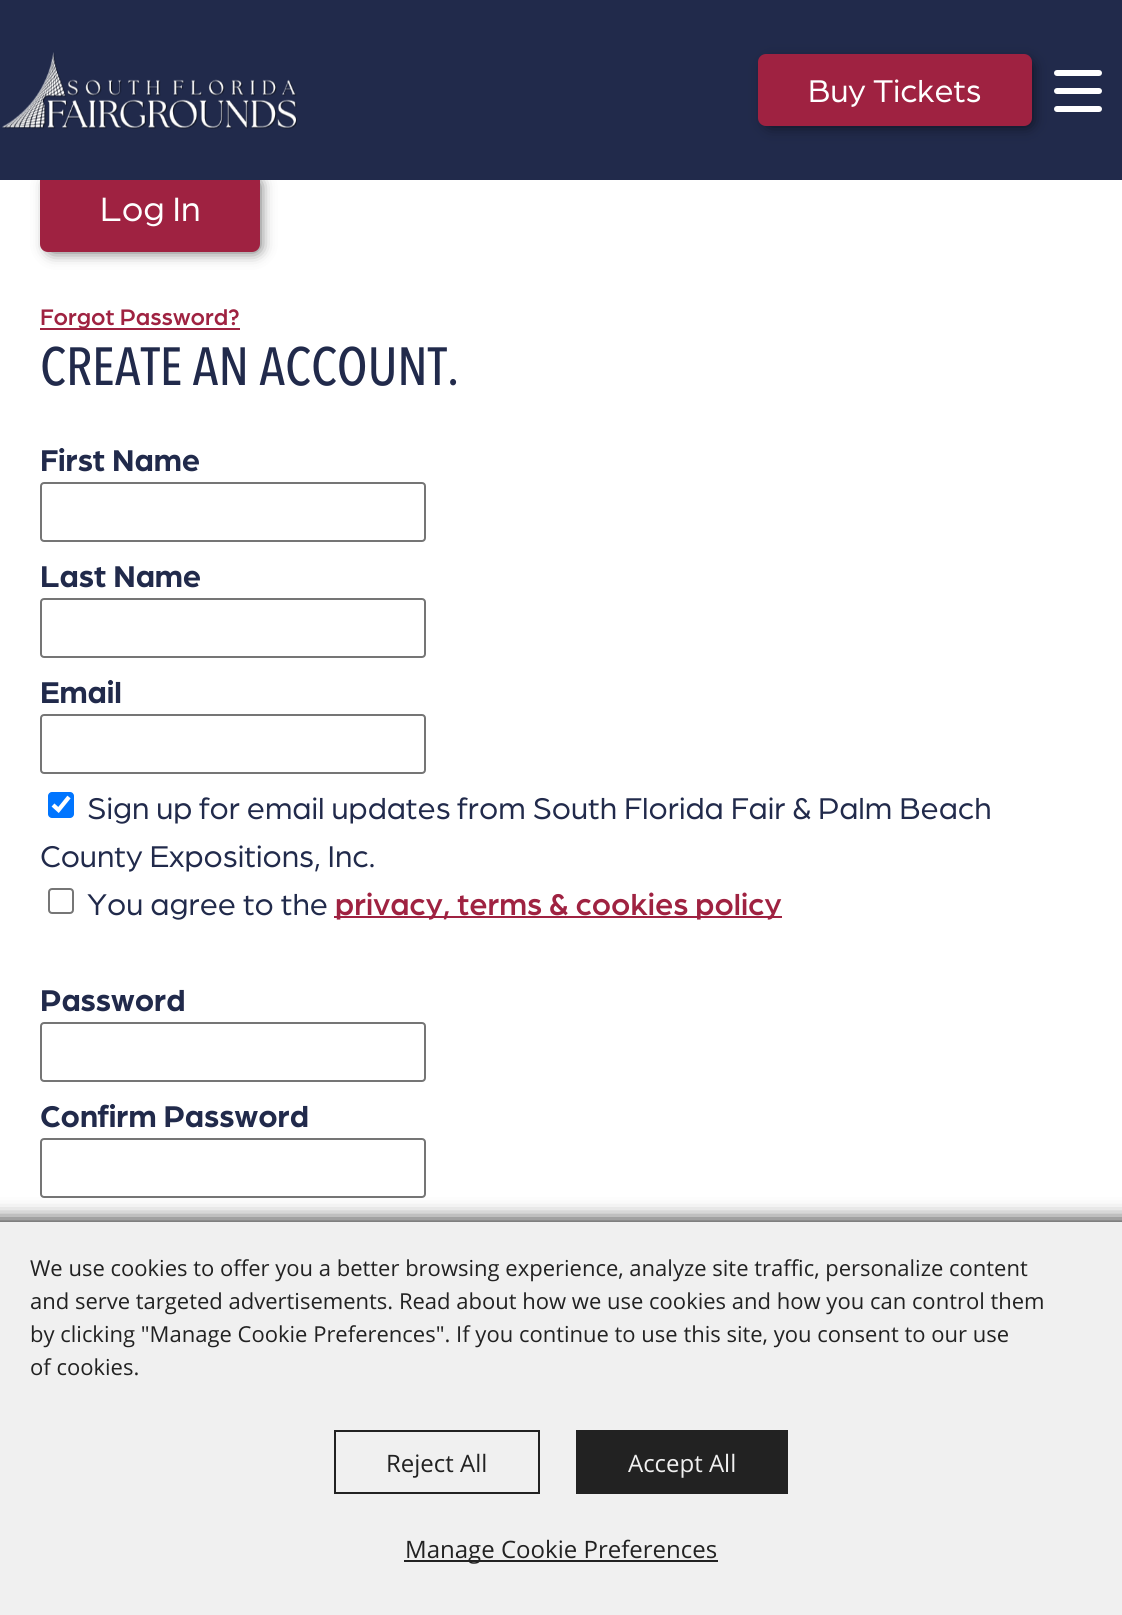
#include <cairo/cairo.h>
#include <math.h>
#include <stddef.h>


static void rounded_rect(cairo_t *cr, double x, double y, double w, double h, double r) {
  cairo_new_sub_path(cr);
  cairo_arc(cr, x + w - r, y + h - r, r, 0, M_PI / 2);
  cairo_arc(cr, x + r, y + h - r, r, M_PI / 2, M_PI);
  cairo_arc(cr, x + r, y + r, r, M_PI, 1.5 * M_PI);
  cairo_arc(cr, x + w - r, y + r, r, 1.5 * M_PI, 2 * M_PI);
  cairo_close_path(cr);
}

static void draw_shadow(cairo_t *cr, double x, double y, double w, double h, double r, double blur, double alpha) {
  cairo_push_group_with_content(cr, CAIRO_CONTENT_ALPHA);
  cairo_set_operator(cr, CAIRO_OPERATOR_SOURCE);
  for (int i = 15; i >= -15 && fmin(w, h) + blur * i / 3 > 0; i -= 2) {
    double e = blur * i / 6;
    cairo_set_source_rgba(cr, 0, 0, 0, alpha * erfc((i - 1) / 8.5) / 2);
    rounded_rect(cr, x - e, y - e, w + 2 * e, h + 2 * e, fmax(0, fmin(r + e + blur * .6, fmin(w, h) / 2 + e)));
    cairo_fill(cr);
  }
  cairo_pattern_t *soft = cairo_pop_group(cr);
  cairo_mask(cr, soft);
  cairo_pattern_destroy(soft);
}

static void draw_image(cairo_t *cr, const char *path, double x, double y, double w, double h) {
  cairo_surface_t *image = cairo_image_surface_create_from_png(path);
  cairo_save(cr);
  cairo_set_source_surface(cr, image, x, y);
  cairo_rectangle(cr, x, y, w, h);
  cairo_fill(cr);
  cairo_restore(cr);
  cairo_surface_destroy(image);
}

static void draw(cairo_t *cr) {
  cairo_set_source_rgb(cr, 1, 1, 1);
  cairo_paint(cr);
  cairo_set_source_rgb(cr, 0, 0, 0);
  draw_shadow(cr, 50, 182, 208, 68, 2, 8, 0.8);
  cairo_set_source_rgb(cr, 159 / 255.0, 34 / 255.0, 65 / 255.0);
  rounded_rect(cr, 40, 172, 220, 80, 8);
  cairo_fill(cr);
  cairo_set_source_rgb(cr, 33 / 255.0, 42 / 255.0, 75 / 255.0);
  cairo_rectangle(cr, 0, 0, 1122, 180);
  cairo_fill(cr);
  draw_image(cr, "images/1.png", 2, 52, 295, 77);
  cairo_set_source_rgb(cr, 0, 0, 0);
  draw_shadow(cr, 768, 64, 262, 60, 2, 8, 0.8);
  cairo_set_source_rgb(cr, 159 / 255.0, 34 / 255.0, 65 / 255.0);
  rounded_rect(cr, 758, 54, 274, 72, 8);
  cairo_fill(cr);
  cairo_set_source_rgb(cr, 1, 1, 1);
  rounded_rect(cr, 1054, 70, 48, 6, 3);
  cairo_fill(cr);
  rounded_rect(cr, 1054, 88, 48, 6, 3);
  cairo_fill(cr);
  rounded_rect(cr, 1054, 106, 48, 6, 3);
  cairo_fill(cr);
  cairo_set_source_rgb(cr, 159 / 255.0, 34 / 255.0, 65 / 255.0);
  cairo_rectangle(cr, 40, 328, 200, 2);
  cairo_fill(cr);
  rounded_rect(cr, 41, 483, 384, 58, 3);
  cairo_set_source_rgb(cr, 117 / 255.0, 117 / 255.0, 117 / 255.0);
  cairo_stroke(cr);
  rounded_rect(cr, 41, 599, 384, 58, 3);
  cairo_stroke(cr);
  rounded_rect(cr, 41, 715, 384, 58, 3);
  cairo_stroke(cr);
  cairo_set_source_rgb(cr, 0, 117 / 255.0, 1);
  rounded_rect(cr, 48, 792, 26, 26, 4);
  cairo_fill(cr);
  cairo_new_path(cr);
  cairo_move_to(cr, 53, 805);
  cairo_line_to(cr, 58.5, 810);
  cairo_line_to(cr, 69, 797);
  cairo_set_source_rgb(cr, 1, 1, 1);
  cairo_set_line_width(cr, 4.2);
  cairo_stroke(cr);
  rounded_rect(cr, 49, 889, 24, 24, 3);
  cairo_set_source_rgb(cr, 118 / 255.0, 118 / 255.0, 118 / 255.0);
  cairo_set_line_width(cr, 2);
  cairo_stroke(cr);
  cairo_set_source_rgb(cr, 159 / 255.0, 34 / 255.0, 65 / 255.0);
  cairo_rectangle(cr, 334, 916, 448, 2);
  cairo_fill(cr);
  rounded_rect(cr, 41, 1023, 384, 58, 3);
  cairo_set_source_rgb(cr, 117 / 255.0, 117 / 255.0, 117 / 255.0);
  cairo_stroke(cr);
  rounded_rect(cr, 41, 1139, 384, 58, 3);
  cairo_stroke(cr);
  cairo_set_source_rgb(cr, 0, 0, 0);
  draw_shadow(cr, -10, 1222, 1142, 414, 0, 10, 1);
  cairo_set_source_rgb(cr, 240 / 255.0, 240 / 255.0, 240 / 255.0);
  cairo_rectangle(cr, 0, 1222, 1122, 393);
  cairo_fill(cr);
  cairo_rectangle(cr, 335, 1431, 204, 62);
  cairo_set_source_rgb(cr, 34 / 255.0, 34 / 255.0, 34 / 255.0);
  cairo_stroke(cr);
  cairo_rectangle(cr, 576, 1430, 212, 64);
  cairo_fill(cr);
  cairo_rectangle(cr, 404, 1560, 314, 2);
  cairo_fill(cr);
  cairo_select_font_face(cr, "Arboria", CAIRO_FONT_SLANT_NORMAL, CAIRO_FONT_WEIGHT_NORMAL);
  cairo_set_font_size(cr, 33.5);
  cairo_set_source_rgb(cr, 1, 1, 1);
  cairo_move_to(cr, 808, 102);
  cairo_show_text(cr, "Buy Tickets");
  cairo_set_font_size(cr, 36);
  cairo_move_to(cr, 100, 221);
  cairo_show_text(cr, "Log In");
  cairo_select_font_face(cr, "Arboria Medium", CAIRO_FONT_SLANT_NORMAL, CAIRO_FONT_WEIGHT_NORMAL);
  cairo_set_font_size(cr, 24);
  cairo_set_source_rgb(cr, 159 / 255.0, 34 / 255.0, 65 / 255.0);
  cairo_move_to(cr, 40, 325);
  cairo_show_text(cr, "Forgot Password?");
  cairo_select_font_face(cr, "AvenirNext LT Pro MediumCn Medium", CAIRO_FONT_SLANT_NORMAL, CAIRO_FONT_WEIGHT_NORMAL);
  cairo_set_font_size(cr, 53.25);
  cairo_set_source_rgb(cr, 33 / 255.0, 42 / 255.0, 75 / 255.0);
  cairo_move_to(cr, 40, 385);
  cairo_show_text(cr, "CREATE AN ACCOUNT.");
  cairo_select_font_face(cr, "Arboria", CAIRO_FONT_SLANT_NORMAL, CAIRO_FONT_WEIGHT_BOLD);
  cairo_set_font_size(cr, 32);
  cairo_move_to(cr, 40, 471);
  cairo_show_text(cr, "First Name");
  cairo_move_to(cr, 40, 587);
  cairo_show_text(cr, "Last Name");
  cairo_move_to(cr, 40, 703);
  cairo_show_text(cr, "Email");
  cairo_select_font_face(cr, "Arboria", CAIRO_FONT_SLANT_NORMAL, CAIRO_FONT_WEIGHT_NORMAL);
  cairo_move_to(cr, 87, 819);
  cairo_show_text(cr, "Sign up for email updates from South Florida Fair & Palm Beach");
  cairo_move_to(cr, 40, 867);
  cairo_show_text(cr, "County Expositions, Inc.");
  cairo_move_to(cr, 87, 915);
  cairo_show_text(cr, "You agree to the");
  cairo_select_font_face(cr, "Arboria Medium", CAIRO_FONT_SLANT_NORMAL, CAIRO_FONT_WEIGHT_NORMAL);
  cairo_set_source_rgb(cr, 159 / 255.0, 34 / 255.0, 65 / 255.0);
  cairo_move_to(cr, 335, 915);
  cairo_show_text(cr, "privacy, terms & cookies policy");
  cairo_select_font_face(cr, "Arboria", CAIRO_FONT_SLANT_NORMAL, CAIRO_FONT_WEIGHT_BOLD);
  cairo_set_source_rgb(cr, 33 / 255.0, 42 / 255.0, 75 / 255.0);
  cairo_move_to(cr, 40, 1011);
  cairo_show_text(cr, "Password");
  cairo_move_to(cr, 40, 1127);
  cairo_show_text(cr, "Confirm Password");
  cairo_select_font_face(cr, "Open Sans", CAIRO_FONT_SLANT_NORMAL, CAIRO_FONT_WEIGHT_NORMAL);
  cairo_set_font_size(cr, 22);
  cairo_set_source_rgb(cr, 34 / 255.0, 34 / 255.0, 34 / 255.0);
  cairo_move_to(cr, 30, 1276);
  cairo_show_text(cr, "We use cookies to offer you a better browsing experience, analyze site traffic, personalize content");
  cairo_move_to(cr, 30, 1309);
  cairo_show_text(cr, "and serve targeted advertisements. Read about how we use cookies and how you can control them");
  cairo_move_to(cr, 30, 1342);
  cairo_show_text(cr, "by clicking \"Manage Cookie Preferences\". If you continue to use this site, you consent to our use");
  cairo_move_to(cr, 30, 1375);
  cairo_show_text(cr, "of cookies.");
  cairo_set_font_size(cr, 24);
  cairo_move_to(cr, 386, 1472);
  cairo_show_text(cr, "Reject All");
  cairo_set_source_rgb(cr, 240 / 255.0, 240 / 255.0, 240 / 255.0);
  cairo_move_to(cr, 628, 1472);
  cairo_show_text(cr, "Accept All");
  cairo_set_source_rgb(cr, 34 / 255.0, 34 / 255.0, 34 / 255.0);
  cairo_move_to(cr, 405, 1558);
  cairo_show_text(cr, "Manage Cookie Preferences");
}

int main(void) {
  cairo_surface_t *surface = cairo_image_surface_create(CAIRO_FORMAT_RGB24, 1122, 1615);
  cairo_t *cr = cairo_create(surface);
  cairo_font_options_t *options = cairo_font_options_create();
  cairo_font_options_set_hint_metrics(options, CAIRO_HINT_METRICS_OFF);
  cairo_font_options_set_hint_style(options, CAIRO_HINT_STYLE_NONE);
  cairo_set_font_options(cr, options);
  cairo_set_miter_limit(cr, 4);
  draw(cr);
  cairo_surface_write_to_png(surface, "out.png");
  cairo_font_options_destroy(options);
  cairo_destroy(cr);
  cairo_surface_destroy(surface);
  return 0;
}
